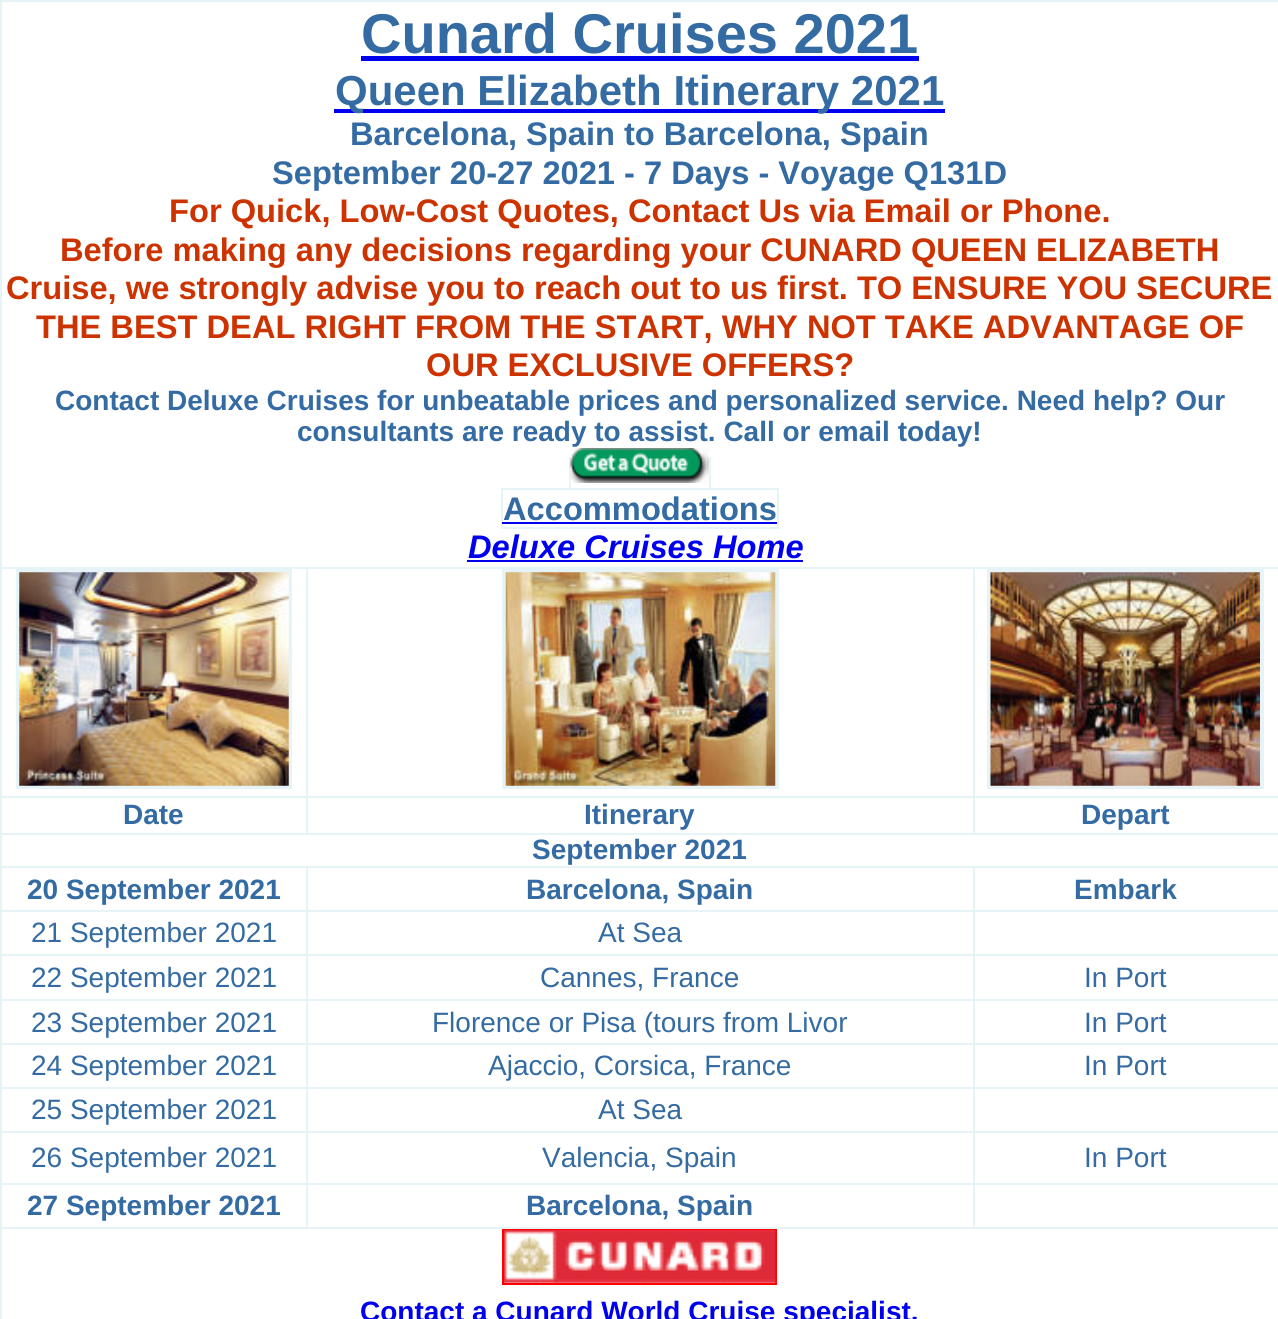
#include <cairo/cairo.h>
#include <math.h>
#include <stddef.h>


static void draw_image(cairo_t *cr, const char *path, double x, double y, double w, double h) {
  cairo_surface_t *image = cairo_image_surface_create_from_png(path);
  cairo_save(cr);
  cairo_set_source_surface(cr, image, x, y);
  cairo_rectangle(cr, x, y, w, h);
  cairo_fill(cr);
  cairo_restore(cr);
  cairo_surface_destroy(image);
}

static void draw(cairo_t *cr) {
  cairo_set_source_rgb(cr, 1, 1, 1);
  cairo_paint(cr);
  cairo_set_source_rgb(cr, 230 / 255.0, 243 / 255.0, 247 / 255.0);
  cairo_rectangle(cr, 0, 0, 1278, 2);
  cairo_fill(cr);
  cairo_rectangle(cr, 0, 0, 2, 1319);
  cairo_fill(cr);
  cairo_set_source_rgb(cr, 0, 0, 238 / 255.0);
  cairo_rectangle(cr, 361, 56, 558, 5);
  cairo_fill(cr);
  cairo_rectangle(cr, 334, 109, 611, 4);
  cairo_fill(cr);
  cairo_rectangle(cr, 570, 458, 140, 31);
  cairo_set_source_rgb(cr, 230 / 255.0, 243 / 255.0, 247 / 255.0);
  cairo_stroke(cr);
  draw_image(cr, "images/1.png", 570, 448, 139, 35);
  cairo_rectangle(cr, 502, 489, 276, 39);
  cairo_stroke(cr);
  cairo_set_source_rgb(cr, 0, 0, 238 / 255.0);
  cairo_rectangle(cr, 502, 522, 275, 2);
  cairo_fill(cr);
  cairo_rectangle(cr, 467, 560, 336, 2);
  cairo_fill(cr);
  cairo_set_source_rgb(cr, 230 / 255.0, 243 / 255.0, 247 / 255.0);
  cairo_rectangle(cr, 973, 567, 305, 2);
  cairo_fill(cr);
  cairo_rectangle(cr, 973, 796, 305, 2);
  cairo_fill(cr);
  cairo_rectangle(cr, 0, 833, 1278, 2);
  cairo_fill(cr);
  cairo_rectangle(cr, 973, 796, 2, 39);
  cairo_fill(cr);
  cairo_rectangle(cr, 306, 796, 669, 2);
  cairo_fill(cr);
  cairo_rectangle(cr, 973, 567, 2, 231);
  cairo_fill(cr);
  cairo_rectangle(cr, 306, 567, 669, 2);
  cairo_fill(cr);
  cairo_rectangle(cr, 306, 796, 2, 39);
  cairo_fill(cr);
  cairo_rectangle(cr, 0, 796, 308, 2);
  cairo_fill(cr);
  cairo_rectangle(cr, 306, 567, 2, 231);
  cairo_fill(cr);
  cairo_rectangle(cr, 0, 567, 308, 2);
  cairo_fill(cr);
  cairo_rectangle(cr, 18, 571, 272, 216);
  cairo_set_line_width(cr, 4);
  cairo_stroke(cr);
  draw_image(cr, "images/2.png", 19, 572, 270, 214);
  cairo_rectangle(cr, 504, 571, 273, 216);
  cairo_stroke(cr);
  draw_image(cr, "images/3.png", 505, 572, 271, 214);
  cairo_rectangle(cr, 989, 571, 273, 216);
  cairo_stroke(cr);
  draw_image(cr, "images/4.png", 990, 572, 270, 214);
  cairo_rectangle(cr, 973, 866, 305, 2);
  cairo_fill(cr);
  cairo_rectangle(cr, 973, 910, 305, 2);
  cairo_fill(cr);
  cairo_rectangle(cr, 973, 954, 305, 2);
  cairo_fill(cr);
  cairo_rectangle(cr, 973, 999, 305, 2);
  cairo_fill(cr);
  cairo_rectangle(cr, 973, 1043, 305, 2);
  cairo_fill(cr);
  cairo_rectangle(cr, 973, 1087, 305, 2);
  cairo_fill(cr);
  cairo_rectangle(cr, 973, 1131, 305, 2);
  cairo_fill(cr);
  cairo_rectangle(cr, 973, 1183, 305, 2);
  cairo_fill(cr);
  cairo_rectangle(cr, 0, 1227, 1278, 2);
  cairo_fill(cr);
  cairo_rectangle(cr, 973, 1183, 2, 46);
  cairo_fill(cr);
  cairo_rectangle(cr, 306, 1183, 669, 2);
  cairo_fill(cr);
  cairo_rectangle(cr, 973, 1131, 2, 54);
  cairo_fill(cr);
  cairo_rectangle(cr, 306, 1131, 669, 2);
  cairo_fill(cr);
  cairo_rectangle(cr, 973, 1087, 2, 45);
  cairo_fill(cr);
  cairo_rectangle(cr, 306, 1087, 669, 2);
  cairo_fill(cr);
  cairo_rectangle(cr, 973, 1043, 2, 46);
  cairo_fill(cr);
  cairo_rectangle(cr, 306, 1043, 669, 2);
  cairo_fill(cr);
  cairo_rectangle(cr, 973, 999, 2, 46);
  cairo_fill(cr);
  cairo_rectangle(cr, 306, 999, 669, 2);
  cairo_fill(cr);
  cairo_rectangle(cr, 973, 954, 2, 47);
  cairo_fill(cr);
  cairo_rectangle(cr, 306, 954, 669, 2);
  cairo_fill(cr);
  cairo_rectangle(cr, 973, 910, 2, 46);
  cairo_fill(cr);
  cairo_rectangle(cr, 306, 910, 669, 2);
  cairo_fill(cr);
  cairo_rectangle(cr, 973, 866, 2, 46);
  cairo_fill(cr);
  cairo_rectangle(cr, 306, 866, 669, 2);
  cairo_fill(cr);
  cairo_rectangle(cr, 306, 1183, 2, 46);
  cairo_fill(cr);
  cairo_rectangle(cr, 0, 1183, 308, 2);
  cairo_fill(cr);
  cairo_rectangle(cr, 306, 1131, 2, 54);
  cairo_fill(cr);
  cairo_rectangle(cr, 0, 1131, 308, 2);
  cairo_fill(cr);
  cairo_rectangle(cr, 306, 1087, 2, 45);
  cairo_fill(cr);
  cairo_rectangle(cr, 0, 1087, 308, 2);
  cairo_fill(cr);
  cairo_rectangle(cr, 306, 1043, 2, 46);
  cairo_fill(cr);
  cairo_rectangle(cr, 0, 1043, 308, 2);
  cairo_fill(cr);
  cairo_rectangle(cr, 306, 999, 2, 46);
  cairo_fill(cr);
  cairo_rectangle(cr, 0, 999, 308, 2);
  cairo_fill(cr);
  cairo_rectangle(cr, 306, 954, 2, 47);
  cairo_fill(cr);
  cairo_rectangle(cr, 0, 954, 308, 2);
  cairo_fill(cr);
  cairo_rectangle(cr, 306, 910, 2, 46);
  cairo_fill(cr);
  cairo_rectangle(cr, 0, 910, 308, 2);
  cairo_fill(cr);
  cairo_rectangle(cr, 306, 866, 2, 46);
  cairo_fill(cr);
  cairo_rectangle(cr, 0, 866, 308, 2);
  cairo_fill(cr);
  cairo_rectangle(cr, 503, 1230, 273, 54);
  cairo_set_source_rgb(cr, 1, 0, 0);
  cairo_set_line_width(cr, 2);
  cairo_stroke(cr);
  draw_image(cr, "images/5.png", 504, 1230, 272, 53);
  cairo_select_font_face(cr, "Liberation Sans", CAIRO_FONT_SLANT_NORMAL, CAIRO_FONT_WEIGHT_BOLD);
  cairo_set_font_size(cr, 56);
  cairo_set_source_rgb(cr, 52 / 255.0, 107 / 255.0, 163 / 255.0);
  cairo_move_to(cr, 361, 53);
  cairo_show_text(cr, "Cunard Cruises 2021");
  cairo_set_font_size(cr, 42);
  cairo_move_to(cr, 335, 105);
  cairo_show_text(cr, "Queen Elizabeth Itinerary 2021");
  cairo_set_font_size(cr, 32.65);
  cairo_move_to(cr, 350, 145);
  cairo_show_text(cr, "Barcelona, Spain to Barcelona, Spain");
  cairo_move_to(cr, 272, 184);
  cairo_show_text(cr, "September 20-27 2021 - 7 Days - Voyage Q131D");
  cairo_set_source_rgb(cr, 204 / 255.0, 51 / 255.0, 0);
  cairo_move_to(cr, 169, 222);
  cairo_show_text(cr, "For Quick, Low-Cost Quotes, Contact Us via Email or Phone.");
  cairo_move_to(cr, 60, 261);
  cairo_show_text(cr, "Before making any decisions regarding your CUNARD QUEEN ELIZABETH");
  cairo_move_to(cr, 6, 299);
  cairo_show_text(cr, "Cruise, we strongly advise you to reach out to us first. TO ENSURE YOU SECURE");
  cairo_move_to(cr, 36, 338);
  cairo_show_text(cr, "THE BEST DEAL RIGHT FROM THE START, WHY NOT TAKE ADVANTAGE OF");
  cairo_move_to(cr, 426, 376);
  cairo_show_text(cr, "OUR EXCLUSIVE OFFERS?");
  cairo_set_font_size(cr, 28);
  cairo_set_source_rgb(cr, 52 / 255.0, 107 / 255.0, 163 / 255.0);
  cairo_move_to(cr, 55, 410);
  cairo_show_text(cr, "Contact Deluxe Cruises for unbeatable prices and personalized service. Need help? Our");
  cairo_move_to(cr, 297, 441);
  cairo_show_text(cr, "consultants are ready to assist. Call or email today!");
  cairo_set_font_size(cr, 32.65);
  cairo_move_to(cr, 503, 520);
  cairo_show_text(cr, "Accommodations");
  cairo_select_font_face(cr, "Liberation Sans", CAIRO_FONT_SLANT_ITALIC, CAIRO_FONT_WEIGHT_BOLD);
  cairo_set_source_rgb(cr, 0, 0, 238 / 255.0);
  cairo_move_to(cr, 468, 558);
  cairo_show_text(cr, "Deluxe Cruises Home");
  cairo_select_font_face(cr, "Liberation Sans", CAIRO_FONT_SLANT_NORMAL, CAIRO_FONT_WEIGHT_BOLD);
  cairo_set_font_size(cr, 28);
  cairo_set_source_rgb(cr, 52 / 255.0, 107 / 255.0, 163 / 255.0);
  cairo_move_to(cr, 123, 824);
  cairo_show_text(cr, "Date");
  cairo_move_to(cr, 584, 824);
  cairo_show_text(cr, "Itinerary");
  cairo_move_to(cr, 1081, 824);
  cairo_show_text(cr, "Depart");
  cairo_move_to(cr, 532, 859);
  cairo_show_text(cr, "September 2021");
  cairo_move_to(cr, 27, 899);
  cairo_show_text(cr, "20 September 2021");
  cairo_move_to(cr, 526, 899);
  cairo_show_text(cr, "Barcelona, Spain");
  cairo_move_to(cr, 1074, 899);
  cairo_show_text(cr, "Embark");
  cairo_select_font_face(cr, "Liberation Sans", CAIRO_FONT_SLANT_NORMAL, CAIRO_FONT_WEIGHT_NORMAL);
  cairo_move_to(cr, 31, 942);
  cairo_show_text(cr, "21 September 2021");
  cairo_move_to(cr, 598, 942);
  cairo_show_text(cr, "At Sea");
  cairo_move_to(cr, 31, 987);
  cairo_show_text(cr, "22 September 2021");
  cairo_move_to(cr, 540, 987);
  cairo_show_text(cr, "Cannes, France");
  cairo_move_to(cr, 1084, 987);
  cairo_show_text(cr, "In Port");
  cairo_move_to(cr, 31, 1032);
  cairo_show_text(cr, "23 September 2021");
  cairo_move_to(cr, 432, 1032);
  cairo_show_text(cr, "Florence or Pisa (tours from Livor");
  cairo_move_to(cr, 1084, 1032);
  cairo_show_text(cr, "In Port");
  cairo_move_to(cr, 31, 1075);
  cairo_show_text(cr, "24 September 2021");
  cairo_move_to(cr, 488, 1075);
  cairo_show_text(cr, "Ajaccio, Corsica, France");
  cairo_move_to(cr, 1084, 1075);
  cairo_show_text(cr, "In Port");
  cairo_move_to(cr, 31, 1119);
  cairo_show_text(cr, "25 September 2021");
  cairo_move_to(cr, 598, 1119);
  cairo_show_text(cr, "At Sea");
  cairo_move_to(cr, 31, 1167);
  cairo_show_text(cr, "26 September 2021");
  cairo_move_to(cr, 542, 1167);
  cairo_show_text(cr, "Valencia, Spain");
  cairo_move_to(cr, 1084, 1167);
  cairo_show_text(cr, "In Port");
  cairo_select_font_face(cr, "Liberation Sans", CAIRO_FONT_SLANT_NORMAL, CAIRO_FONT_WEIGHT_BOLD);
  cairo_move_to(cr, 27, 1215);
  cairo_show_text(cr, "27 September 2021");
  cairo_move_to(cr, 526, 1215);
  cairo_show_text(cr, "Barcelona, Spain");
  cairo_set_source_rgb(cr, 0, 0, 238 / 255.0);
  cairo_move_to(cr, 360, 1321);
  cairo_show_text(cr, "Contact a Cunard World Cruise specialist.");
}

int main(void) {
  cairo_surface_t *surface = cairo_image_surface_create(CAIRO_FORMAT_RGB24, 1278, 1319);
  cairo_t *cr = cairo_create(surface);
  cairo_font_options_t *options = cairo_font_options_create();
  cairo_font_options_set_hint_metrics(options, CAIRO_HINT_METRICS_OFF);
  cairo_font_options_set_hint_style(options, CAIRO_HINT_STYLE_NONE);
  cairo_set_font_options(cr, options);
  cairo_set_miter_limit(cr, 4);
  draw(cr);
  cairo_surface_write_to_png(surface, "out.png");
  cairo_font_options_destroy(options);
  cairo_destroy(cr);
  cairo_surface_destroy(surface);
  return 0;
}
